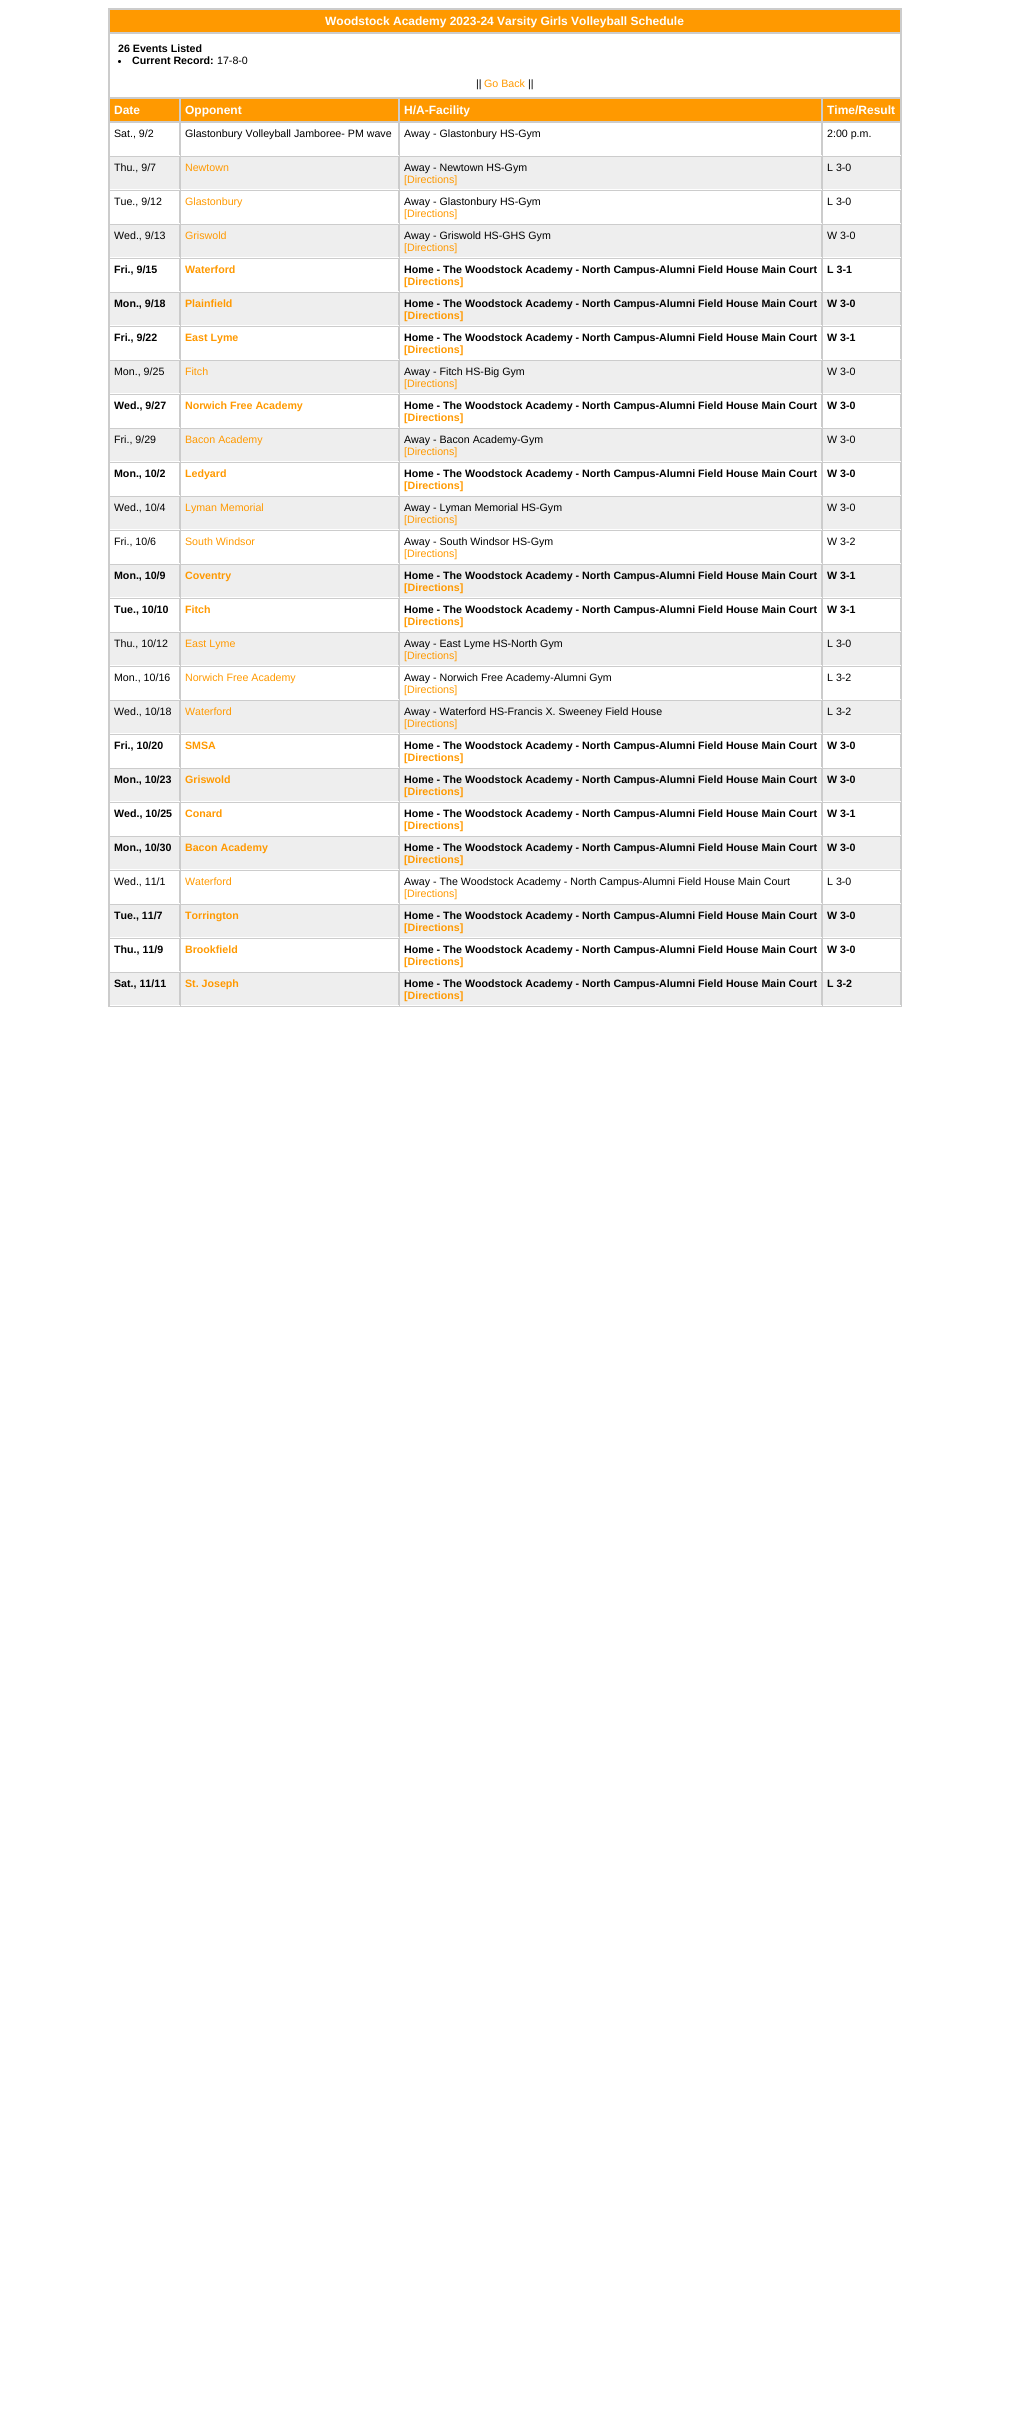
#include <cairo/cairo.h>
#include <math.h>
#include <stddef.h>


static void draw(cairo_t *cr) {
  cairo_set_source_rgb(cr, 1, 1, 1);
  cairo_paint(cr);
  cairo_set_source_rgb(cr, 204 / 255.0, 204 / 255.0, 204 / 255.0);
  cairo_rectangle(cr, 108, 8, 794, 999);
  cairo_fill(cr);
  cairo_set_source_rgb(cr, 1, 153 / 255.0, 0);
  cairo_rectangle(cr, 110, 10, 790, 22);
  cairo_fill(cr);
  cairo_set_source_rgb(cr, 1, 1, 1);
  cairo_rectangle(cr, 110, 34, 790, 63);
  cairo_fill(cr);
  cairo_set_source_rgb(cr, 0, 0, 0);
  cairo_arc(cr, 119.5, 61.5, 1.5, 0, 2 * M_PI);
  cairo_fill(cr);
  cairo_set_source_rgb(cr, 1, 153 / 255.0, 0);
  cairo_rectangle(cr, 110, 99, 69, 22);
  cairo_fill(cr);
  cairo_rectangle(cr, 181, 99, 217, 22);
  cairo_fill(cr);
  cairo_rectangle(cr, 400, 99, 421, 22);
  cairo_fill(cr);
  cairo_rectangle(cr, 823, 99, 77, 22);
  cairo_fill(cr);
  cairo_set_source_rgb(cr, 1, 1, 1);
  cairo_rectangle(cr, 110, 123, 790, 32);
  cairo_fill(cr);
  cairo_set_source_rgb(cr, 204 / 255.0, 204 / 255.0, 204 / 255.0);
  cairo_rectangle(cr, 179, 122, 1, 34);
  cairo_fill(cr);
  cairo_set_source_rgb(cr, 1, 1, 1);
  cairo_rectangle(cr, 109, 155, 71, 1);
  cairo_fill(cr);
  cairo_set_source_rgb(cr, 204 / 255.0, 204 / 255.0, 204 / 255.0);
  cairo_rectangle(cr, 109, 155, 1, 1);
  cairo_fill(cr);
  cairo_rectangle(cr, 398, 122, 1, 34);
  cairo_fill(cr);
  cairo_set_source_rgb(cr, 1, 1, 1);
  cairo_rectangle(cr, 180, 155, 219, 1);
  cairo_fill(cr);
  cairo_set_source_rgb(cr, 204 / 255.0, 204 / 255.0, 204 / 255.0);
  cairo_rectangle(cr, 180, 122, 1, 34);
  cairo_fill(cr);
  cairo_rectangle(cr, 821, 122, 1, 34);
  cairo_fill(cr);
  cairo_set_source_rgb(cr, 1, 1, 1);
  cairo_rectangle(cr, 399, 155, 502, 1);
  cairo_fill(cr);
  cairo_set_source_rgb(cr, 204 / 255.0, 204 / 255.0, 204 / 255.0);
  cairo_rectangle(cr, 399, 122, 1, 34);
  cairo_fill(cr);
  cairo_rectangle(cr, 822, 122, 1, 34);
  cairo_fill(cr);
  cairo_set_source_rgb(cr, 238 / 255.0, 238 / 255.0, 238 / 255.0);
  cairo_rectangle(cr, 110, 157, 790, 32);
  cairo_fill(cr);
  cairo_set_source_rgb(cr, 204 / 255.0, 204 / 255.0, 204 / 255.0);
  cairo_rectangle(cr, 179, 156, 1, 34);
  cairo_fill(cr);
  cairo_set_source_rgb(cr, 1, 1, 1);
  cairo_rectangle(cr, 109, 189, 71, 1);
  cairo_fill(cr);
  cairo_set_source_rgb(cr, 204 / 255.0, 204 / 255.0, 204 / 255.0);
  cairo_rectangle(cr, 109, 189, 1, 1);
  cairo_fill(cr);
  cairo_rectangle(cr, 398, 156, 1, 34);
  cairo_fill(cr);
  cairo_set_source_rgb(cr, 1, 1, 1);
  cairo_rectangle(cr, 180, 189, 219, 1);
  cairo_fill(cr);
  cairo_set_source_rgb(cr, 204 / 255.0, 204 / 255.0, 204 / 255.0);
  cairo_rectangle(cr, 180, 156, 1, 34);
  cairo_fill(cr);
  cairo_rectangle(cr, 821, 156, 1, 34);
  cairo_fill(cr);
  cairo_set_source_rgb(cr, 1, 1, 1);
  cairo_rectangle(cr, 399, 189, 502, 1);
  cairo_fill(cr);
  cairo_set_source_rgb(cr, 204 / 255.0, 204 / 255.0, 204 / 255.0);
  cairo_rectangle(cr, 399, 156, 1, 34);
  cairo_fill(cr);
  cairo_rectangle(cr, 822, 156, 1, 34);
  cairo_fill(cr);
  cairo_set_source_rgb(cr, 1, 1, 1);
  cairo_rectangle(cr, 110, 191, 790, 32);
  cairo_fill(cr);
  cairo_set_source_rgb(cr, 204 / 255.0, 204 / 255.0, 204 / 255.0);
  cairo_rectangle(cr, 179, 190, 1, 34);
  cairo_fill(cr);
  cairo_set_source_rgb(cr, 1, 1, 1);
  cairo_rectangle(cr, 109, 223, 71, 1);
  cairo_fill(cr);
  cairo_set_source_rgb(cr, 204 / 255.0, 204 / 255.0, 204 / 255.0);
  cairo_rectangle(cr, 109, 223, 1, 1);
  cairo_fill(cr);
  cairo_rectangle(cr, 398, 190, 1, 34);
  cairo_fill(cr);
  cairo_set_source_rgb(cr, 1, 1, 1);
  cairo_rectangle(cr, 180, 223, 219, 1);
  cairo_fill(cr);
  cairo_set_source_rgb(cr, 204 / 255.0, 204 / 255.0, 204 / 255.0);
  cairo_rectangle(cr, 180, 190, 1, 34);
  cairo_fill(cr);
  cairo_rectangle(cr, 821, 190, 1, 34);
  cairo_fill(cr);
  cairo_set_source_rgb(cr, 1, 1, 1);
  cairo_rectangle(cr, 399, 223, 502, 1);
  cairo_fill(cr);
  cairo_set_source_rgb(cr, 204 / 255.0, 204 / 255.0, 204 / 255.0);
  cairo_rectangle(cr, 399, 190, 1, 34);
  cairo_fill(cr);
  cairo_rectangle(cr, 822, 190, 1, 34);
  cairo_fill(cr);
  cairo_set_source_rgb(cr, 238 / 255.0, 238 / 255.0, 238 / 255.0);
  cairo_rectangle(cr, 110, 225, 790, 32);
  cairo_fill(cr);
  cairo_set_source_rgb(cr, 204 / 255.0, 204 / 255.0, 204 / 255.0);
  cairo_rectangle(cr, 179, 224, 1, 34);
  cairo_fill(cr);
  cairo_set_source_rgb(cr, 1, 1, 1);
  cairo_rectangle(cr, 109, 257, 71, 1);
  cairo_fill(cr);
  cairo_set_source_rgb(cr, 204 / 255.0, 204 / 255.0, 204 / 255.0);
  cairo_rectangle(cr, 109, 257, 1, 1);
  cairo_fill(cr);
  cairo_rectangle(cr, 398, 224, 1, 34);
  cairo_fill(cr);
  cairo_set_source_rgb(cr, 1, 1, 1);
  cairo_rectangle(cr, 180, 257, 219, 1);
  cairo_fill(cr);
  cairo_set_source_rgb(cr, 204 / 255.0, 204 / 255.0, 204 / 255.0);
  cairo_rectangle(cr, 180, 224, 1, 34);
  cairo_fill(cr);
  cairo_rectangle(cr, 821, 224, 1, 34);
  cairo_fill(cr);
  cairo_set_source_rgb(cr, 1, 1, 1);
  cairo_rectangle(cr, 399, 257, 502, 1);
  cairo_fill(cr);
  cairo_set_source_rgb(cr, 204 / 255.0, 204 / 255.0, 204 / 255.0);
  cairo_rectangle(cr, 399, 224, 1, 34);
  cairo_fill(cr);
  cairo_rectangle(cr, 822, 224, 1, 34);
  cairo_fill(cr);
  cairo_set_source_rgb(cr, 1, 1, 1);
  cairo_rectangle(cr, 110, 259, 790, 32);
  cairo_fill(cr);
  cairo_set_source_rgb(cr, 204 / 255.0, 204 / 255.0, 204 / 255.0);
  cairo_rectangle(cr, 179, 258, 1, 34);
  cairo_fill(cr);
  cairo_set_source_rgb(cr, 1, 1, 1);
  cairo_rectangle(cr, 109, 291, 71, 1);
  cairo_fill(cr);
  cairo_set_source_rgb(cr, 204 / 255.0, 204 / 255.0, 204 / 255.0);
  cairo_rectangle(cr, 109, 291, 1, 1);
  cairo_fill(cr);
  cairo_rectangle(cr, 398, 258, 1, 34);
  cairo_fill(cr);
  cairo_set_source_rgb(cr, 1, 1, 1);
  cairo_rectangle(cr, 180, 291, 219, 1);
  cairo_fill(cr);
  cairo_set_source_rgb(cr, 204 / 255.0, 204 / 255.0, 204 / 255.0);
  cairo_rectangle(cr, 180, 258, 1, 34);
  cairo_fill(cr);
  cairo_rectangle(cr, 821, 258, 1, 34);
  cairo_fill(cr);
  cairo_set_source_rgb(cr, 1, 1, 1);
  cairo_rectangle(cr, 399, 291, 502, 1);
  cairo_fill(cr);
  cairo_set_source_rgb(cr, 204 / 255.0, 204 / 255.0, 204 / 255.0);
  cairo_rectangle(cr, 399, 258, 1, 34);
  cairo_fill(cr);
  cairo_rectangle(cr, 822, 258, 1, 34);
  cairo_fill(cr);
  cairo_set_source_rgb(cr, 238 / 255.0, 238 / 255.0, 238 / 255.0);
  cairo_rectangle(cr, 110, 293, 790, 32);
  cairo_fill(cr);
  cairo_set_source_rgb(cr, 204 / 255.0, 204 / 255.0, 204 / 255.0);
  cairo_rectangle(cr, 179, 292, 1, 34);
  cairo_fill(cr);
  cairo_set_source_rgb(cr, 1, 1, 1);
  cairo_rectangle(cr, 109, 325, 71, 1);
  cairo_fill(cr);
  cairo_set_source_rgb(cr, 204 / 255.0, 204 / 255.0, 204 / 255.0);
  cairo_rectangle(cr, 109, 325, 1, 1);
  cairo_fill(cr);
  cairo_rectangle(cr, 398, 292, 1, 34);
  cairo_fill(cr);
  cairo_set_source_rgb(cr, 1, 1, 1);
  cairo_rectangle(cr, 180, 325, 219, 1);
  cairo_fill(cr);
  cairo_set_source_rgb(cr, 204 / 255.0, 204 / 255.0, 204 / 255.0);
  cairo_rectangle(cr, 180, 292, 1, 34);
  cairo_fill(cr);
  cairo_rectangle(cr, 821, 292, 1, 34);
  cairo_fill(cr);
  cairo_set_source_rgb(cr, 1, 1, 1);
  cairo_rectangle(cr, 399, 325, 502, 1);
  cairo_fill(cr);
  cairo_set_source_rgb(cr, 204 / 255.0, 204 / 255.0, 204 / 255.0);
  cairo_rectangle(cr, 399, 292, 1, 34);
  cairo_fill(cr);
  cairo_rectangle(cr, 822, 292, 1, 34);
  cairo_fill(cr);
  cairo_set_source_rgb(cr, 1, 1, 1);
  cairo_rectangle(cr, 110, 327, 790, 32);
  cairo_fill(cr);
  cairo_set_source_rgb(cr, 204 / 255.0, 204 / 255.0, 204 / 255.0);
  cairo_rectangle(cr, 179, 326, 1, 34);
  cairo_fill(cr);
  cairo_set_source_rgb(cr, 1, 1, 1);
  cairo_rectangle(cr, 109, 359, 71, 1);
  cairo_fill(cr);
  cairo_set_source_rgb(cr, 204 / 255.0, 204 / 255.0, 204 / 255.0);
  cairo_rectangle(cr, 109, 359, 1, 1);
  cairo_fill(cr);
  cairo_rectangle(cr, 398, 326, 1, 34);
  cairo_fill(cr);
  cairo_set_source_rgb(cr, 1, 1, 1);
  cairo_rectangle(cr, 180, 359, 219, 1);
  cairo_fill(cr);
  cairo_set_source_rgb(cr, 204 / 255.0, 204 / 255.0, 204 / 255.0);
  cairo_rectangle(cr, 180, 326, 1, 34);
  cairo_fill(cr);
  cairo_rectangle(cr, 821, 326, 1, 34);
  cairo_fill(cr);
  cairo_set_source_rgb(cr, 1, 1, 1);
  cairo_rectangle(cr, 399, 359, 502, 1);
  cairo_fill(cr);
  cairo_set_source_rgb(cr, 204 / 255.0, 204 / 255.0, 204 / 255.0);
  cairo_rectangle(cr, 399, 326, 1, 34);
  cairo_fill(cr);
  cairo_rectangle(cr, 822, 326, 1, 34);
  cairo_fill(cr);
  cairo_set_source_rgb(cr, 238 / 255.0, 238 / 255.0, 238 / 255.0);
  cairo_rectangle(cr, 110, 361, 790, 32);
  cairo_fill(cr);
  cairo_set_source_rgb(cr, 204 / 255.0, 204 / 255.0, 204 / 255.0);
  cairo_rectangle(cr, 179, 360, 1, 34);
  cairo_fill(cr);
  cairo_set_source_rgb(cr, 1, 1, 1);
  cairo_rectangle(cr, 109, 393, 71, 1);
  cairo_fill(cr);
  cairo_set_source_rgb(cr, 204 / 255.0, 204 / 255.0, 204 / 255.0);
  cairo_rectangle(cr, 109, 393, 1, 1);
  cairo_fill(cr);
  cairo_rectangle(cr, 398, 360, 1, 34);
  cairo_fill(cr);
  cairo_set_source_rgb(cr, 1, 1, 1);
  cairo_rectangle(cr, 180, 393, 219, 1);
  cairo_fill(cr);
  cairo_set_source_rgb(cr, 204 / 255.0, 204 / 255.0, 204 / 255.0);
  cairo_rectangle(cr, 180, 360, 1, 34);
  cairo_fill(cr);
  cairo_rectangle(cr, 821, 360, 1, 34);
  cairo_fill(cr);
  cairo_set_source_rgb(cr, 1, 1, 1);
  cairo_rectangle(cr, 399, 393, 502, 1);
  cairo_fill(cr);
  cairo_set_source_rgb(cr, 204 / 255.0, 204 / 255.0, 204 / 255.0);
  cairo_rectangle(cr, 399, 360, 1, 34);
  cairo_fill(cr);
  cairo_rectangle(cr, 822, 360, 1, 34);
  cairo_fill(cr);
  cairo_set_source_rgb(cr, 1, 1, 1);
  cairo_rectangle(cr, 110, 395, 790, 32);
  cairo_fill(cr);
  cairo_set_source_rgb(cr, 204 / 255.0, 204 / 255.0, 204 / 255.0);
  cairo_rectangle(cr, 179, 394, 1, 34);
  cairo_fill(cr);
  cairo_set_source_rgb(cr, 1, 1, 1);
  cairo_rectangle(cr, 109, 427, 71, 1);
  cairo_fill(cr);
  cairo_set_source_rgb(cr, 204 / 255.0, 204 / 255.0, 204 / 255.0);
  cairo_rectangle(cr, 109, 427, 1, 1);
  cairo_fill(cr);
  cairo_rectangle(cr, 398, 394, 1, 34);
  cairo_fill(cr);
  cairo_set_source_rgb(cr, 1, 1, 1);
  cairo_rectangle(cr, 180, 427, 219, 1);
  cairo_fill(cr);
  cairo_set_source_rgb(cr, 204 / 255.0, 204 / 255.0, 204 / 255.0);
  cairo_rectangle(cr, 180, 394, 1, 34);
  cairo_fill(cr);
  cairo_rectangle(cr, 821, 394, 1, 34);
  cairo_fill(cr);
  cairo_set_source_rgb(cr, 1, 1, 1);
  cairo_rectangle(cr, 399, 427, 502, 1);
  cairo_fill(cr);
  cairo_set_source_rgb(cr, 204 / 255.0, 204 / 255.0, 204 / 255.0);
  cairo_rectangle(cr, 399, 394, 1, 34);
  cairo_fill(cr);
  cairo_rectangle(cr, 822, 394, 1, 34);
  cairo_fill(cr);
  cairo_set_source_rgb(cr, 238 / 255.0, 238 / 255.0, 238 / 255.0);
  cairo_rectangle(cr, 110, 429, 790, 32);
  cairo_fill(cr);
  cairo_set_source_rgb(cr, 204 / 255.0, 204 / 255.0, 204 / 255.0);
  cairo_rectangle(cr, 179, 428, 1, 34);
  cairo_fill(cr);
  cairo_set_source_rgb(cr, 1, 1, 1);
  cairo_rectangle(cr, 109, 461, 71, 1);
  cairo_fill(cr);
  cairo_set_source_rgb(cr, 204 / 255.0, 204 / 255.0, 204 / 255.0);
  cairo_rectangle(cr, 109, 461, 1, 1);
  cairo_fill(cr);
  cairo_rectangle(cr, 398, 428, 1, 34);
  cairo_fill(cr);
  cairo_set_source_rgb(cr, 1, 1, 1);
  cairo_rectangle(cr, 180, 461, 219, 1);
  cairo_fill(cr);
  cairo_set_source_rgb(cr, 204 / 255.0, 204 / 255.0, 204 / 255.0);
  cairo_rectangle(cr, 180, 428, 1, 34);
  cairo_fill(cr);
  cairo_rectangle(cr, 821, 428, 1, 34);
  cairo_fill(cr);
  cairo_set_source_rgb(cr, 1, 1, 1);
  cairo_rectangle(cr, 399, 461, 502, 1);
  cairo_fill(cr);
  cairo_set_source_rgb(cr, 204 / 255.0, 204 / 255.0, 204 / 255.0);
  cairo_rectangle(cr, 399, 428, 1, 34);
  cairo_fill(cr);
  cairo_rectangle(cr, 822, 428, 1, 34);
  cairo_fill(cr);
  cairo_set_source_rgb(cr, 1, 1, 1);
  cairo_rectangle(cr, 110, 463, 790, 32);
  cairo_fill(cr);
  cairo_set_source_rgb(cr, 204 / 255.0, 204 / 255.0, 204 / 255.0);
  cairo_rectangle(cr, 179, 462, 1, 34);
  cairo_fill(cr);
  cairo_set_source_rgb(cr, 1, 1, 1);
  cairo_rectangle(cr, 109, 495, 71, 1);
  cairo_fill(cr);
  cairo_set_source_rgb(cr, 204 / 255.0, 204 / 255.0, 204 / 255.0);
  cairo_rectangle(cr, 109, 495, 1, 1);
  cairo_fill(cr);
  cairo_rectangle(cr, 398, 462, 1, 34);
  cairo_fill(cr);
  cairo_set_source_rgb(cr, 1, 1, 1);
  cairo_rectangle(cr, 180, 495, 219, 1);
  cairo_fill(cr);
  cairo_set_source_rgb(cr, 204 / 255.0, 204 / 255.0, 204 / 255.0);
  cairo_rectangle(cr, 180, 462, 1, 34);
  cairo_fill(cr);
  cairo_rectangle(cr, 821, 462, 1, 34);
  cairo_fill(cr);
  cairo_set_source_rgb(cr, 1, 1, 1);
  cairo_rectangle(cr, 399, 495, 502, 1);
  cairo_fill(cr);
  cairo_set_source_rgb(cr, 204 / 255.0, 204 / 255.0, 204 / 255.0);
  cairo_rectangle(cr, 399, 462, 1, 34);
  cairo_fill(cr);
  cairo_rectangle(cr, 822, 462, 1, 34);
  cairo_fill(cr);
  cairo_set_source_rgb(cr, 238 / 255.0, 238 / 255.0, 238 / 255.0);
  cairo_rectangle(cr, 110, 497, 790, 32);
  cairo_fill(cr);
  cairo_set_source_rgb(cr, 204 / 255.0, 204 / 255.0, 204 / 255.0);
  cairo_rectangle(cr, 179, 496, 1, 34);
  cairo_fill(cr);
  cairo_set_source_rgb(cr, 1, 1, 1);
  cairo_rectangle(cr, 109, 529, 71, 1);
  cairo_fill(cr);
  cairo_set_source_rgb(cr, 204 / 255.0, 204 / 255.0, 204 / 255.0);
  cairo_rectangle(cr, 109, 529, 1, 1);
  cairo_fill(cr);
  cairo_rectangle(cr, 398, 496, 1, 34);
  cairo_fill(cr);
  cairo_set_source_rgb(cr, 1, 1, 1);
  cairo_rectangle(cr, 180, 529, 219, 1);
  cairo_fill(cr);
  cairo_set_source_rgb(cr, 204 / 255.0, 204 / 255.0, 204 / 255.0);
  cairo_rectangle(cr, 180, 496, 1, 34);
  cairo_fill(cr);
  cairo_rectangle(cr, 821, 496, 1, 34);
  cairo_fill(cr);
  cairo_set_source_rgb(cr, 1, 1, 1);
  cairo_rectangle(cr, 399, 529, 502, 1);
  cairo_fill(cr);
  cairo_set_source_rgb(cr, 204 / 255.0, 204 / 255.0, 204 / 255.0);
  cairo_rectangle(cr, 399, 496, 1, 34);
  cairo_fill(cr);
  cairo_rectangle(cr, 822, 496, 1, 34);
  cairo_fill(cr);
  cairo_set_source_rgb(cr, 1, 1, 1);
  cairo_rectangle(cr, 110, 531, 790, 32);
  cairo_fill(cr);
  cairo_set_source_rgb(cr, 204 / 255.0, 204 / 255.0, 204 / 255.0);
  cairo_rectangle(cr, 179, 530, 1, 34);
  cairo_fill(cr);
  cairo_set_source_rgb(cr, 1, 1, 1);
  cairo_rectangle(cr, 109, 563, 71, 1);
  cairo_fill(cr);
  cairo_set_source_rgb(cr, 204 / 255.0, 204 / 255.0, 204 / 255.0);
  cairo_rectangle(cr, 109, 563, 1, 1);
  cairo_fill(cr);
  cairo_rectangle(cr, 398, 530, 1, 34);
  cairo_fill(cr);
  cairo_set_source_rgb(cr, 1, 1, 1);
  cairo_rectangle(cr, 180, 563, 219, 1);
  cairo_fill(cr);
  cairo_set_source_rgb(cr, 204 / 255.0, 204 / 255.0, 204 / 255.0);
  cairo_rectangle(cr, 180, 530, 1, 34);
  cairo_fill(cr);
  cairo_rectangle(cr, 821, 530, 1, 34);
  cairo_fill(cr);
  cairo_set_source_rgb(cr, 1, 1, 1);
  cairo_rectangle(cr, 399, 563, 502, 1);
  cairo_fill(cr);
  cairo_set_source_rgb(cr, 204 / 255.0, 204 / 255.0, 204 / 255.0);
  cairo_rectangle(cr, 399, 530, 1, 34);
  cairo_fill(cr);
  cairo_rectangle(cr, 822, 530, 1, 34);
  cairo_fill(cr);
  cairo_set_source_rgb(cr, 238 / 255.0, 238 / 255.0, 238 / 255.0);
  cairo_rectangle(cr, 110, 565, 790, 32);
  cairo_fill(cr);
  cairo_set_source_rgb(cr, 204 / 255.0, 204 / 255.0, 204 / 255.0);
  cairo_rectangle(cr, 179, 564, 1, 34);
  cairo_fill(cr);
  cairo_set_source_rgb(cr, 1, 1, 1);
  cairo_rectangle(cr, 109, 597, 71, 1);
  cairo_fill(cr);
  cairo_set_source_rgb(cr, 204 / 255.0, 204 / 255.0, 204 / 255.0);
  cairo_rectangle(cr, 109, 597, 1, 1);
  cairo_fill(cr);
  cairo_rectangle(cr, 398, 564, 1, 34);
  cairo_fill(cr);
  cairo_set_source_rgb(cr, 1, 1, 1);
  cairo_rectangle(cr, 180, 597, 219, 1);
  cairo_fill(cr);
  cairo_set_source_rgb(cr, 204 / 255.0, 204 / 255.0, 204 / 255.0);
  cairo_rectangle(cr, 180, 564, 1, 34);
  cairo_fill(cr);
  cairo_rectangle(cr, 821, 564, 1, 34);
  cairo_fill(cr);
  cairo_set_source_rgb(cr, 1, 1, 1);
  cairo_rectangle(cr, 399, 597, 502, 1);
  cairo_fill(cr);
  cairo_set_source_rgb(cr, 204 / 255.0, 204 / 255.0, 204 / 255.0);
  cairo_rectangle(cr, 399, 564, 1, 34);
  cairo_fill(cr);
  cairo_rectangle(cr, 822, 564, 1, 34);
  cairo_fill(cr);
  cairo_set_source_rgb(cr, 1, 1, 1);
  cairo_rectangle(cr, 110, 599, 790, 32);
  cairo_fill(cr);
  cairo_set_source_rgb(cr, 204 / 255.0, 204 / 255.0, 204 / 255.0);
  cairo_rectangle(cr, 179, 598, 1, 34);
  cairo_fill(cr);
  cairo_set_source_rgb(cr, 1, 1, 1);
  cairo_rectangle(cr, 109, 631, 71, 1);
  cairo_fill(cr);
  cairo_set_source_rgb(cr, 204 / 255.0, 204 / 255.0, 204 / 255.0);
  cairo_rectangle(cr, 109, 631, 1, 1);
  cairo_fill(cr);
  cairo_rectangle(cr, 398, 598, 1, 34);
  cairo_fill(cr);
  cairo_set_source_rgb(cr, 1, 1, 1);
  cairo_rectangle(cr, 180, 631, 219, 1);
  cairo_fill(cr);
  cairo_set_source_rgb(cr, 204 / 255.0, 204 / 255.0, 204 / 255.0);
  cairo_rectangle(cr, 180, 598, 1, 34);
  cairo_fill(cr);
  cairo_rectangle(cr, 821, 598, 1, 34);
  cairo_fill(cr);
  cairo_set_source_rgb(cr, 1, 1, 1);
  cairo_rectangle(cr, 399, 631, 502, 1);
  cairo_fill(cr);
  cairo_set_source_rgb(cr, 204 / 255.0, 204 / 255.0, 204 / 255.0);
  cairo_rectangle(cr, 399, 598, 1, 34);
  cairo_fill(cr);
  cairo_rectangle(cr, 822, 598, 1, 34);
  cairo_fill(cr);
  cairo_set_source_rgb(cr, 238 / 255.0, 238 / 255.0, 238 / 255.0);
  cairo_rectangle(cr, 110, 633, 790, 32);
  cairo_fill(cr);
  cairo_set_source_rgb(cr, 204 / 255.0, 204 / 255.0, 204 / 255.0);
  cairo_rectangle(cr, 179, 632, 1, 34);
  cairo_fill(cr);
  cairo_set_source_rgb(cr, 1, 1, 1);
  cairo_rectangle(cr, 109, 665, 71, 1);
  cairo_fill(cr);
  cairo_set_source_rgb(cr, 204 / 255.0, 204 / 255.0, 204 / 255.0);
  cairo_rectangle(cr, 109, 665, 1, 1);
  cairo_fill(cr);
  cairo_rectangle(cr, 398, 632, 1, 34);
  cairo_fill(cr);
  cairo_set_source_rgb(cr, 1, 1, 1);
  cairo_rectangle(cr, 180, 665, 219, 1);
  cairo_fill(cr);
  cairo_set_source_rgb(cr, 204 / 255.0, 204 / 255.0, 204 / 255.0);
  cairo_rectangle(cr, 180, 632, 1, 34);
  cairo_fill(cr);
  cairo_rectangle(cr, 821, 632, 1, 34);
  cairo_fill(cr);
  cairo_set_source_rgb(cr, 1, 1, 1);
  cairo_rectangle(cr, 399, 665, 502, 1);
  cairo_fill(cr);
  cairo_set_source_rgb(cr, 204 / 255.0, 204 / 255.0, 204 / 255.0);
  cairo_rectangle(cr, 399, 632, 1, 34);
  cairo_fill(cr);
  cairo_rectangle(cr, 822, 632, 1, 34);
  cairo_fill(cr);
  cairo_set_source_rgb(cr, 1, 1, 1);
  cairo_rectangle(cr, 110, 667, 790, 32);
  cairo_fill(cr);
  cairo_set_source_rgb(cr, 204 / 255.0, 204 / 255.0, 204 / 255.0);
  cairo_rectangle(cr, 179, 666, 1, 34);
  cairo_fill(cr);
  cairo_set_source_rgb(cr, 1, 1, 1);
  cairo_rectangle(cr, 109, 699, 71, 1);
  cairo_fill(cr);
  cairo_set_source_rgb(cr, 204 / 255.0, 204 / 255.0, 204 / 255.0);
  cairo_rectangle(cr, 109, 699, 1, 1);
  cairo_fill(cr);
  cairo_rectangle(cr, 398, 666, 1, 34);
  cairo_fill(cr);
  cairo_set_source_rgb(cr, 1, 1, 1);
  cairo_rectangle(cr, 180, 699, 219, 1);
  cairo_fill(cr);
  cairo_set_source_rgb(cr, 204 / 255.0, 204 / 255.0, 204 / 255.0);
  cairo_rectangle(cr, 180, 666, 1, 34);
  cairo_fill(cr);
  cairo_rectangle(cr, 821, 666, 1, 34);
  cairo_fill(cr);
  cairo_set_source_rgb(cr, 1, 1, 1);
  cairo_rectangle(cr, 399, 699, 502, 1);
  cairo_fill(cr);
  cairo_set_source_rgb(cr, 204 / 255.0, 204 / 255.0, 204 / 255.0);
  cairo_rectangle(cr, 399, 666, 1, 34);
  cairo_fill(cr);
  cairo_rectangle(cr, 822, 666, 1, 34);
  cairo_fill(cr);
  cairo_set_source_rgb(cr, 238 / 255.0, 238 / 255.0, 238 / 255.0);
  cairo_rectangle(cr, 110, 701, 790, 32);
  cairo_fill(cr);
  cairo_set_source_rgb(cr, 204 / 255.0, 204 / 255.0, 204 / 255.0);
  cairo_rectangle(cr, 179, 700, 1, 34);
  cairo_fill(cr);
  cairo_set_source_rgb(cr, 1, 1, 1);
  cairo_rectangle(cr, 109, 733, 71, 1);
  cairo_fill(cr);
  cairo_set_source_rgb(cr, 204 / 255.0, 204 / 255.0, 204 / 255.0);
  cairo_rectangle(cr, 109, 733, 1, 1);
  cairo_fill(cr);
  cairo_rectangle(cr, 398, 700, 1, 34);
  cairo_fill(cr);
  cairo_set_source_rgb(cr, 1, 1, 1);
  cairo_rectangle(cr, 180, 733, 219, 1);
  cairo_fill(cr);
  cairo_set_source_rgb(cr, 204 / 255.0, 204 / 255.0, 204 / 255.0);
  cairo_rectangle(cr, 180, 700, 1, 34);
  cairo_fill(cr);
  cairo_rectangle(cr, 821, 700, 1, 34);
  cairo_fill(cr);
  cairo_set_source_rgb(cr, 1, 1, 1);
  cairo_rectangle(cr, 399, 733, 502, 1);
  cairo_fill(cr);
  cairo_set_source_rgb(cr, 204 / 255.0, 204 / 255.0, 204 / 255.0);
  cairo_rectangle(cr, 399, 700, 1, 34);
  cairo_fill(cr);
  cairo_rectangle(cr, 822, 700, 1, 34);
  cairo_fill(cr);
  cairo_set_source_rgb(cr, 1, 1, 1);
  cairo_rectangle(cr, 110, 735, 790, 32);
  cairo_fill(cr);
  cairo_set_source_rgb(cr, 204 / 255.0, 204 / 255.0, 204 / 255.0);
  cairo_rectangle(cr, 179, 734, 1, 34);
  cairo_fill(cr);
  cairo_set_source_rgb(cr, 1, 1, 1);
  cairo_rectangle(cr, 109, 767, 71, 1);
  cairo_fill(cr);
  cairo_set_source_rgb(cr, 204 / 255.0, 204 / 255.0, 204 / 255.0);
  cairo_rectangle(cr, 109, 767, 1, 1);
  cairo_fill(cr);
  cairo_rectangle(cr, 398, 734, 1, 34);
  cairo_fill(cr);
  cairo_set_source_rgb(cr, 1, 1, 1);
  cairo_rectangle(cr, 180, 767, 219, 1);
  cairo_fill(cr);
  cairo_set_source_rgb(cr, 204 / 255.0, 204 / 255.0, 204 / 255.0);
  cairo_rectangle(cr, 180, 734, 1, 34);
  cairo_fill(cr);
  cairo_rectangle(cr, 821, 734, 1, 34);
  cairo_fill(cr);
  cairo_set_source_rgb(cr, 1, 1, 1);
  cairo_rectangle(cr, 399, 767, 502, 1);
  cairo_fill(cr);
  cairo_set_source_rgb(cr, 204 / 255.0, 204 / 255.0, 204 / 255.0);
  cairo_rectangle(cr, 399, 734, 1, 34);
  cairo_fill(cr);
  cairo_rectangle(cr, 822, 734, 1, 34);
  cairo_fill(cr);
  cairo_set_source_rgb(cr, 238 / 255.0, 238 / 255.0, 238 / 255.0);
  cairo_rectangle(cr, 110, 769, 790, 32);
  cairo_fill(cr);
  cairo_set_source_rgb(cr, 204 / 255.0, 204 / 255.0, 204 / 255.0);
  cairo_rectangle(cr, 179, 768, 1, 34);
  cairo_fill(cr);
  cairo_set_source_rgb(cr, 1, 1, 1);
  cairo_rectangle(cr, 109, 801, 71, 1);
  cairo_fill(cr);
  cairo_set_source_rgb(cr, 204 / 255.0, 204 / 255.0, 204 / 255.0);
  cairo_rectangle(cr, 109, 801, 1, 1);
  cairo_fill(cr);
  cairo_rectangle(cr, 398, 768, 1, 34);
  cairo_fill(cr);
  cairo_set_source_rgb(cr, 1, 1, 1);
  cairo_rectangle(cr, 180, 801, 219, 1);
  cairo_fill(cr);
  cairo_set_source_rgb(cr, 204 / 255.0, 204 / 255.0, 204 / 255.0);
  cairo_rectangle(cr, 180, 768, 1, 34);
  cairo_fill(cr);
  cairo_rectangle(cr, 821, 768, 1, 34);
  cairo_fill(cr);
  cairo_set_source_rgb(cr, 1, 1, 1);
  cairo_rectangle(cr, 399, 801, 502, 1);
  cairo_fill(cr);
  cairo_set_source_rgb(cr, 204 / 255.0, 204 / 255.0, 204 / 255.0);
  cairo_rectangle(cr, 399, 768, 1, 34);
  cairo_fill(cr);
  cairo_rectangle(cr, 822, 768, 1, 34);
  cairo_fill(cr);
  cairo_set_source_rgb(cr, 1, 1, 1);
  cairo_rectangle(cr, 110, 803, 790, 32);
  cairo_fill(cr);
  cairo_set_source_rgb(cr, 204 / 255.0, 204 / 255.0, 204 / 255.0);
  cairo_rectangle(cr, 179, 802, 1, 34);
  cairo_fill(cr);
  cairo_set_source_rgb(cr, 1, 1, 1);
  cairo_rectangle(cr, 109, 835, 71, 1);
  cairo_fill(cr);
  cairo_set_source_rgb(cr, 204 / 255.0, 204 / 255.0, 204 / 255.0);
  cairo_rectangle(cr, 109, 835, 1, 1);
  cairo_fill(cr);
  cairo_rectangle(cr, 398, 802, 1, 34);
  cairo_fill(cr);
  cairo_set_source_rgb(cr, 1, 1, 1);
  cairo_rectangle(cr, 180, 835, 219, 1);
  cairo_fill(cr);
  cairo_set_source_rgb(cr, 204 / 255.0, 204 / 255.0, 204 / 255.0);
  cairo_rectangle(cr, 180, 802, 1, 34);
  cairo_fill(cr);
  cairo_rectangle(cr, 821, 802, 1, 34);
  cairo_fill(cr);
  cairo_set_source_rgb(cr, 1, 1, 1);
  cairo_rectangle(cr, 399, 835, 502, 1);
  cairo_fill(cr);
  cairo_set_source_rgb(cr, 204 / 255.0, 204 / 255.0, 204 / 255.0);
  cairo_rectangle(cr, 399, 802, 1, 34);
  cairo_fill(cr);
  cairo_rectangle(cr, 822, 802, 1, 34);
  cairo_fill(cr);
  cairo_set_source_rgb(cr, 238 / 255.0, 238 / 255.0, 238 / 255.0);
  cairo_rectangle(cr, 110, 837, 790, 32);
  cairo_fill(cr);
  cairo_set_source_rgb(cr, 204 / 255.0, 204 / 255.0, 204 / 255.0);
  cairo_rectangle(cr, 179, 836, 1, 34);
  cairo_fill(cr);
  cairo_set_source_rgb(cr, 1, 1, 1);
  cairo_rectangle(cr, 109, 869, 71, 1);
  cairo_fill(cr);
  cairo_set_source_rgb(cr, 204 / 255.0, 204 / 255.0, 204 / 255.0);
  cairo_rectangle(cr, 109, 869, 1, 1);
  cairo_fill(cr);
  cairo_rectangle(cr, 398, 836, 1, 34);
  cairo_fill(cr);
  cairo_set_source_rgb(cr, 1, 1, 1);
  cairo_rectangle(cr, 180, 869, 219, 1);
  cairo_fill(cr);
  cairo_set_source_rgb(cr, 204 / 255.0, 204 / 255.0, 204 / 255.0);
  cairo_rectangle(cr, 180, 836, 1, 34);
  cairo_fill(cr);
  cairo_rectangle(cr, 821, 836, 1, 34);
  cairo_fill(cr);
  cairo_set_source_rgb(cr, 1, 1, 1);
  cairo_rectangle(cr, 399, 869, 502, 1);
  cairo_fill(cr);
  cairo_set_source_rgb(cr, 204 / 255.0, 204 / 255.0, 204 / 255.0);
  cairo_rectangle(cr, 399, 836, 1, 34);
  cairo_fill(cr);
  cairo_rectangle(cr, 822, 836, 1, 34);
  cairo_fill(cr);
  cairo_set_source_rgb(cr, 1, 1, 1);
  cairo_rectangle(cr, 110, 871, 790, 32);
  cairo_fill(cr);
  cairo_set_source_rgb(cr, 204 / 255.0, 204 / 255.0, 204 / 255.0);
  cairo_rectangle(cr, 179, 870, 1, 34);
  cairo_fill(cr);
  cairo_set_source_rgb(cr, 1, 1, 1);
  cairo_rectangle(cr, 109, 903, 71, 1);
  cairo_fill(cr);
  cairo_set_source_rgb(cr, 204 / 255.0, 204 / 255.0, 204 / 255.0);
  cairo_rectangle(cr, 109, 903, 1, 1);
  cairo_fill(cr);
  cairo_rectangle(cr, 398, 870, 1, 34);
  cairo_fill(cr);
  cairo_set_source_rgb(cr, 1, 1, 1);
  cairo_rectangle(cr, 180, 903, 219, 1);
  cairo_fill(cr);
  cairo_set_source_rgb(cr, 204 / 255.0, 204 / 255.0, 204 / 255.0);
  cairo_rectangle(cr, 180, 870, 1, 34);
  cairo_fill(cr);
  cairo_rectangle(cr, 821, 870, 1, 34);
  cairo_fill(cr);
  cairo_set_source_rgb(cr, 1, 1, 1);
  cairo_rectangle(cr, 399, 903, 502, 1);
  cairo_fill(cr);
  cairo_set_source_rgb(cr, 204 / 255.0, 204 / 255.0, 204 / 255.0);
  cairo_rectangle(cr, 399, 870, 1, 34);
  cairo_fill(cr);
  cairo_rectangle(cr, 822, 870, 1, 34);
  cairo_fill(cr);
  cairo_set_source_rgb(cr, 238 / 255.0, 238 / 255.0, 238 / 255.0);
  cairo_rectangle(cr, 110, 905, 790, 32);
  cairo_fill(cr);
  cairo_set_source_rgb(cr, 204 / 255.0, 204 / 255.0, 204 / 255.0);
  cairo_rectangle(cr, 179, 904, 1, 34);
  cairo_fill(cr);
  cairo_set_source_rgb(cr, 1, 1, 1);
  cairo_rectangle(cr, 109, 937, 71, 1);
  cairo_fill(cr);
  cairo_set_source_rgb(cr, 204 / 255.0, 204 / 255.0, 204 / 255.0);
  cairo_rectangle(cr, 109, 937, 1, 1);
  cairo_fill(cr);
  cairo_rectangle(cr, 398, 904, 1, 34);
  cairo_fill(cr);
  cairo_set_source_rgb(cr, 1, 1, 1);
  cairo_rectangle(cr, 180, 937, 219, 1);
  cairo_fill(cr);
  cairo_set_source_rgb(cr, 204 / 255.0, 204 / 255.0, 204 / 255.0);
  cairo_rectangle(cr, 180, 904, 1, 34);
  cairo_fill(cr);
  cairo_rectangle(cr, 821, 904, 1, 34);
  cairo_fill(cr);
  cairo_set_source_rgb(cr, 1, 1, 1);
  cairo_rectangle(cr, 399, 937, 502, 1);
  cairo_fill(cr);
  cairo_set_source_rgb(cr, 204 / 255.0, 204 / 255.0, 204 / 255.0);
  cairo_rectangle(cr, 399, 904, 1, 34);
  cairo_fill(cr);
  cairo_rectangle(cr, 822, 904, 1, 34);
  cairo_fill(cr);
  cairo_set_source_rgb(cr, 1, 1, 1);
  cairo_rectangle(cr, 110, 939, 790, 32);
  cairo_fill(cr);
  cairo_set_source_rgb(cr, 204 / 255.0, 204 / 255.0, 204 / 255.0);
  cairo_rectangle(cr, 179, 938, 1, 34);
  cairo_fill(cr);
  cairo_set_source_rgb(cr, 1, 1, 1);
  cairo_rectangle(cr, 109, 971, 71, 1);
  cairo_fill(cr);
  cairo_set_source_rgb(cr, 204 / 255.0, 204 / 255.0, 204 / 255.0);
  cairo_rectangle(cr, 109, 971, 1, 1);
  cairo_fill(cr);
  cairo_rectangle(cr, 398, 938, 1, 34);
  cairo_fill(cr);
  cairo_set_source_rgb(cr, 1, 1, 1);
  cairo_rectangle(cr, 180, 971, 219, 1);
  cairo_fill(cr);
  cairo_set_source_rgb(cr, 204 / 255.0, 204 / 255.0, 204 / 255.0);
  cairo_rectangle(cr, 180, 938, 1, 34);
  cairo_fill(cr);
  cairo_rectangle(cr, 821, 938, 1, 34);
  cairo_fill(cr);
  cairo_set_source_rgb(cr, 1, 1, 1);
  cairo_rectangle(cr, 399, 971, 502, 1);
  cairo_fill(cr);
  cairo_set_source_rgb(cr, 204 / 255.0, 204 / 255.0, 204 / 255.0);
  cairo_rectangle(cr, 399, 938, 1, 34);
  cairo_fill(cr);
  cairo_rectangle(cr, 822, 938, 1, 34);
  cairo_fill(cr);
  cairo_set_source_rgb(cr, 238 / 255.0, 238 / 255.0, 238 / 255.0);
  cairo_rectangle(cr, 110, 973, 790, 32);
  cairo_fill(cr);
  cairo_set_source_rgb(cr, 204 / 255.0, 204 / 255.0, 204 / 255.0);
  cairo_rectangle(cr, 179, 972, 1, 34);
  cairo_fill(cr);
  cairo_set_source_rgb(cr, 1, 1, 1);
  cairo_rectangle(cr, 109, 1005, 71, 1);
  cairo_fill(cr);
  cairo_set_source_rgb(cr, 204 / 255.0, 204 / 255.0, 204 / 255.0);
  cairo_rectangle(cr, 109, 1005, 1, 1);
  cairo_fill(cr);
  cairo_rectangle(cr, 398, 972, 1, 34);
  cairo_fill(cr);
  cairo_set_source_rgb(cr, 1, 1, 1);
  cairo_rectangle(cr, 180, 1005, 219, 1);
  cairo_fill(cr);
  cairo_set_source_rgb(cr, 204 / 255.0, 204 / 255.0, 204 / 255.0);
  cairo_rectangle(cr, 180, 972, 1, 34);
  cairo_fill(cr);
  cairo_rectangle(cr, 821, 972, 1, 34);
  cairo_fill(cr);
  cairo_set_source_rgb(cr, 1, 1, 1);
  cairo_rectangle(cr, 399, 1005, 502, 1);
  cairo_fill(cr);
  cairo_set_source_rgb(cr, 204 / 255.0, 204 / 255.0, 204 / 255.0);
  cairo_rectangle(cr, 399, 972, 1, 34);
  cairo_fill(cr);
  cairo_rectangle(cr, 822, 972, 1, 34);
  cairo_fill(cr);
  cairo_select_font_face(cr, "Liberation Sans", CAIRO_FONT_SLANT_NORMAL, CAIRO_FONT_WEIGHT_BOLD);
  cairo_set_font_size(cr, 12);
  cairo_set_source_rgb(cr, 1, 1, 1);
  cairo_move_to(cr, 325, 25);
  cairo_show_text(cr, "Woodstock Academy 2023-24 Varsity Girls Volleyball Schedule");
  cairo_set_font_size(cr, 10.65);
  cairo_set_source_rgb(cr, 0, 0, 0);
  cairo_move_to(cr, 118, 52);
  cairo_show_text(cr, "26 Events Listed");
  cairo_move_to(cr, 132, 64);
  cairo_show_text(cr, "Current Record:");
  cairo_select_font_face(cr, "Liberation Sans", CAIRO_FONT_SLANT_NORMAL, CAIRO_FONT_WEIGHT_NORMAL);
  cairo_move_to(cr, 217, 64);
  cairo_show_text(cr, "17-8-0");
  cairo_move_to(cr, 476, 87);
  cairo_show_text(cr, "||");
  cairo_set_source_rgb(cr, 1, 153 / 255.0, 0);
  cairo_move_to(cr, 484, 87);
  cairo_show_text(cr, "Go Back");
  cairo_set_source_rgb(cr, 0, 0, 0);
  cairo_move_to(cr, 528, 87);
  cairo_show_text(cr, "||");
  cairo_select_font_face(cr, "Liberation Sans", CAIRO_FONT_SLANT_NORMAL, CAIRO_FONT_WEIGHT_BOLD);
  cairo_set_font_size(cr, 12);
  cairo_set_source_rgb(cr, 1, 1, 1);
  cairo_move_to(cr, 114, 114);
  cairo_show_text(cr, "Date");
  cairo_move_to(cr, 185, 114);
  cairo_show_text(cr, "Opponent");
  cairo_move_to(cr, 404, 114);
  cairo_show_text(cr, "H/A-Facility");
  cairo_move_to(cr, 827, 114);
  cairo_show_text(cr, "Time/Result");
  cairo_select_font_face(cr, "Liberation Sans", CAIRO_FONT_SLANT_NORMAL, CAIRO_FONT_WEIGHT_NORMAL);
  cairo_set_font_size(cr, 10.65);
  cairo_set_source_rgb(cr, 0, 0, 0);
  cairo_move_to(cr, 114, 137);
  cairo_show_text(cr, "Sat., 9/2");
  cairo_move_to(cr, 185, 137);
  cairo_show_text(cr, "Glastonbury Volleyball Jamboree- PM wave");
  cairo_move_to(cr, 404, 137);
  cairo_show_text(cr, "Away - Glastonbury HS-Gym");
  cairo_move_to(cr, 827, 137);
  cairo_show_text(cr, "2:00 p.m.");
  cairo_move_to(cr, 114, 171);
  cairo_show_text(cr, "Thu., 9/7");
  cairo_set_source_rgb(cr, 1, 153 / 255.0, 0);
  cairo_move_to(cr, 185, 171);
  cairo_show_text(cr, "Newtown");
  cairo_set_source_rgb(cr, 0, 0, 0);
  cairo_move_to(cr, 404, 171);
  cairo_show_text(cr, "Away - Newtown HS-Gym");
  cairo_set_source_rgb(cr, 1, 153 / 255.0, 0);
  cairo_move_to(cr, 404, 183);
  cairo_show_text(cr, "[Directions]");
  cairo_set_source_rgb(cr, 0, 0, 0);
  cairo_move_to(cr, 827, 171);
  cairo_show_text(cr, "L 3-0");
  cairo_move_to(cr, 114, 205);
  cairo_show_text(cr, "Tue., 9/12");
  cairo_set_source_rgb(cr, 1, 153 / 255.0, 0);
  cairo_move_to(cr, 185, 205);
  cairo_show_text(cr, "Glastonbury");
  cairo_set_source_rgb(cr, 0, 0, 0);
  cairo_move_to(cr, 404, 205);
  cairo_show_text(cr, "Away - Glastonbury HS-Gym");
  cairo_set_source_rgb(cr, 1, 153 / 255.0, 0);
  cairo_move_to(cr, 404, 217);
  cairo_show_text(cr, "[Directions]");
  cairo_set_source_rgb(cr, 0, 0, 0);
  cairo_move_to(cr, 827, 205);
  cairo_show_text(cr, "L 3-0");
  cairo_move_to(cr, 114, 239);
  cairo_show_text(cr, "Wed., 9/13");
  cairo_set_source_rgb(cr, 1, 153 / 255.0, 0);
  cairo_move_to(cr, 185, 239);
  cairo_show_text(cr, "Griswold");
  cairo_set_source_rgb(cr, 0, 0, 0);
  cairo_move_to(cr, 404, 239);
  cairo_show_text(cr, "Away - Griswold HS-GHS Gym");
  cairo_set_source_rgb(cr, 1, 153 / 255.0, 0);
  cairo_move_to(cr, 404, 251);
  cairo_show_text(cr, "[Directions]");
  cairo_set_source_rgb(cr, 0, 0, 0);
  cairo_move_to(cr, 827, 239);
  cairo_show_text(cr, "W 3-0");
  cairo_select_font_face(cr, "Liberation Sans", CAIRO_FONT_SLANT_NORMAL, CAIRO_FONT_WEIGHT_BOLD);
  cairo_move_to(cr, 114, 273);
  cairo_show_text(cr, "Fri., 9/15");
  cairo_set_source_rgb(cr, 1, 153 / 255.0, 0);
  cairo_move_to(cr, 185, 273);
  cairo_show_text(cr, "Waterford");
  cairo_set_source_rgb(cr, 0, 0, 0);
  cairo_move_to(cr, 404, 273);
  cairo_show_text(cr, "Home - The Woodstock Academy - North Campus-Alumni Field House Main Court");
  cairo_set_source_rgb(cr, 1, 153 / 255.0, 0);
  cairo_move_to(cr, 404, 285);
  cairo_show_text(cr, "[Directions]");
  cairo_set_source_rgb(cr, 0, 0, 0);
  cairo_move_to(cr, 827, 273);
  cairo_show_text(cr, "L 3-1");
  cairo_move_to(cr, 114, 307);
  cairo_show_text(cr, "Mon., 9/18");
  cairo_set_source_rgb(cr, 1, 153 / 255.0, 0);
  cairo_move_to(cr, 185, 307);
  cairo_show_text(cr, "Plainfield");
  cairo_set_source_rgb(cr, 0, 0, 0);
  cairo_move_to(cr, 404, 307);
  cairo_show_text(cr, "Home - The Woodstock Academy - North Campus-Alumni Field House Main Court");
  cairo_set_source_rgb(cr, 1, 153 / 255.0, 0);
  cairo_move_to(cr, 404, 319);
  cairo_show_text(cr, "[Directions]");
  cairo_set_source_rgb(cr, 0, 0, 0);
  cairo_move_to(cr, 827, 307);
  cairo_show_text(cr, "W 3-0");
  cairo_move_to(cr, 114, 341);
  cairo_show_text(cr, "Fri., 9/22");
  cairo_set_source_rgb(cr, 1, 153 / 255.0, 0);
  cairo_move_to(cr, 185, 341);
  cairo_show_text(cr, "East Lyme");
  cairo_set_source_rgb(cr, 0, 0, 0);
  cairo_move_to(cr, 404, 341);
  cairo_show_text(cr, "Home - The Woodstock Academy - North Campus-Alumni Field House Main Court");
  cairo_set_source_rgb(cr, 1, 153 / 255.0, 0);
  cairo_move_to(cr, 404, 353);
  cairo_show_text(cr, "[Directions]");
  cairo_set_source_rgb(cr, 0, 0, 0);
  cairo_move_to(cr, 827, 341);
  cairo_show_text(cr, "W 3-1");
  cairo_select_font_face(cr, "Liberation Sans", CAIRO_FONT_SLANT_NORMAL, CAIRO_FONT_WEIGHT_NORMAL);
  cairo_move_to(cr, 114, 375);
  cairo_show_text(cr, "Mon., 9/25");
  cairo_set_source_rgb(cr, 1, 153 / 255.0, 0);
  cairo_move_to(cr, 185, 375);
  cairo_show_text(cr, "Fitch");
  cairo_set_source_rgb(cr, 0, 0, 0);
  cairo_move_to(cr, 404, 375);
  cairo_show_text(cr, "Away - Fitch HS-Big Gym");
  cairo_set_source_rgb(cr, 1, 153 / 255.0, 0);
  cairo_move_to(cr, 404, 387);
  cairo_show_text(cr, "[Directions]");
  cairo_set_source_rgb(cr, 0, 0, 0);
  cairo_move_to(cr, 827, 375);
  cairo_show_text(cr, "W 3-0");
  cairo_select_font_face(cr, "Liberation Sans", CAIRO_FONT_SLANT_NORMAL, CAIRO_FONT_WEIGHT_BOLD);
  cairo_move_to(cr, 114, 409);
  cairo_show_text(cr, "Wed., 9/27");
  cairo_set_source_rgb(cr, 1, 153 / 255.0, 0);
  cairo_move_to(cr, 185, 409);
  cairo_show_text(cr, "Norwich Free Academy");
  cairo_set_source_rgb(cr, 0, 0, 0);
  cairo_move_to(cr, 404, 409);
  cairo_show_text(cr, "Home - The Woodstock Academy - North Campus-Alumni Field House Main Court");
  cairo_set_source_rgb(cr, 1, 153 / 255.0, 0);
  cairo_move_to(cr, 404, 421);
  cairo_show_text(cr, "[Directions]");
  cairo_set_source_rgb(cr, 0, 0, 0);
  cairo_move_to(cr, 827, 409);
  cairo_show_text(cr, "W 3-0");
  cairo_select_font_face(cr, "Liberation Sans", CAIRO_FONT_SLANT_NORMAL, CAIRO_FONT_WEIGHT_NORMAL);
  cairo_move_to(cr, 114, 443);
  cairo_show_text(cr, "Fri., 9/29");
  cairo_set_source_rgb(cr, 1, 153 / 255.0, 0);
  cairo_move_to(cr, 185, 443);
  cairo_show_text(cr, "Bacon Academy");
  cairo_set_source_rgb(cr, 0, 0, 0);
  cairo_move_to(cr, 404, 443);
  cairo_show_text(cr, "Away - Bacon Academy-Gym");
  cairo_set_source_rgb(cr, 1, 153 / 255.0, 0);
  cairo_move_to(cr, 404, 455);
  cairo_show_text(cr, "[Directions]");
  cairo_set_source_rgb(cr, 0, 0, 0);
  cairo_move_to(cr, 827, 443);
  cairo_show_text(cr, "W 3-0");
  cairo_select_font_face(cr, "Liberation Sans", CAIRO_FONT_SLANT_NORMAL, CAIRO_FONT_WEIGHT_BOLD);
  cairo_move_to(cr, 114, 477);
  cairo_show_text(cr, "Mon., 10/2");
  cairo_set_source_rgb(cr, 1, 153 / 255.0, 0);
  cairo_move_to(cr, 185, 477);
  cairo_show_text(cr, "Ledyard");
  cairo_set_source_rgb(cr, 0, 0, 0);
  cairo_move_to(cr, 404, 477);
  cairo_show_text(cr, "Home - The Woodstock Academy - North Campus-Alumni Field House Main Court");
  cairo_set_source_rgb(cr, 1, 153 / 255.0, 0);
  cairo_move_to(cr, 404, 489);
  cairo_show_text(cr, "[Directions]");
  cairo_set_source_rgb(cr, 0, 0, 0);
  cairo_move_to(cr, 827, 477);
  cairo_show_text(cr, "W 3-0");
  cairo_select_font_face(cr, "Liberation Sans", CAIRO_FONT_SLANT_NORMAL, CAIRO_FONT_WEIGHT_NORMAL);
  cairo_move_to(cr, 114, 511);
  cairo_show_text(cr, "Wed., 10/4");
  cairo_set_source_rgb(cr, 1, 153 / 255.0, 0);
  cairo_move_to(cr, 185, 511);
  cairo_show_text(cr, "Lyman Memorial");
  cairo_set_source_rgb(cr, 0, 0, 0);
  cairo_move_to(cr, 404, 511);
  cairo_show_text(cr, "Away - Lyman Memorial HS-Gym");
  cairo_set_source_rgb(cr, 1, 153 / 255.0, 0);
  cairo_move_to(cr, 404, 523);
  cairo_show_text(cr, "[Directions]");
  cairo_set_source_rgb(cr, 0, 0, 0);
  cairo_move_to(cr, 827, 511);
  cairo_show_text(cr, "W 3-0");
  cairo_move_to(cr, 114, 545);
  cairo_show_text(cr, "Fri., 10/6");
  cairo_set_source_rgb(cr, 1, 153 / 255.0, 0);
  cairo_move_to(cr, 185, 545);
  cairo_show_text(cr, "South Windsor");
  cairo_set_source_rgb(cr, 0, 0, 0);
  cairo_move_to(cr, 404, 545);
  cairo_show_text(cr, "Away - South Windsor HS-Gym");
  cairo_set_source_rgb(cr, 1, 153 / 255.0, 0);
  cairo_move_to(cr, 404, 557);
  cairo_show_text(cr, "[Directions]");
  cairo_set_source_rgb(cr, 0, 0, 0);
  cairo_move_to(cr, 827, 545);
  cairo_show_text(cr, "W 3-2");
  cairo_select_font_face(cr, "Liberation Sans", CAIRO_FONT_SLANT_NORMAL, CAIRO_FONT_WEIGHT_BOLD);
  cairo_move_to(cr, 114, 579);
  cairo_show_text(cr, "Mon., 10/9");
  cairo_set_source_rgb(cr, 1, 153 / 255.0, 0);
  cairo_move_to(cr, 185, 579);
  cairo_show_text(cr, "Coventry");
  cairo_set_source_rgb(cr, 0, 0, 0);
  cairo_move_to(cr, 404, 579);
  cairo_show_text(cr, "Home - The Woodstock Academy - North Campus-Alumni Field House Main Court");
  cairo_set_source_rgb(cr, 1, 153 / 255.0, 0);
  cairo_move_to(cr, 404, 591);
  cairo_show_text(cr, "[Directions]");
  cairo_set_source_rgb(cr, 0, 0, 0);
  cairo_move_to(cr, 827, 579);
  cairo_show_text(cr, "W 3-1");
  cairo_move_to(cr, 114, 613);
  cairo_show_text(cr, "Tue., 10/10");
  cairo_set_source_rgb(cr, 1, 153 / 255.0, 0);
  cairo_move_to(cr, 185, 613);
  cairo_show_text(cr, "Fitch");
  cairo_set_source_rgb(cr, 0, 0, 0);
  cairo_move_to(cr, 404, 613);
  cairo_show_text(cr, "Home - The Woodstock Academy - North Campus-Alumni Field House Main Court");
  cairo_set_source_rgb(cr, 1, 153 / 255.0, 0);
  cairo_move_to(cr, 404, 625);
  cairo_show_text(cr, "[Directions]");
  cairo_set_source_rgb(cr, 0, 0, 0);
  cairo_move_to(cr, 827, 613);
  cairo_show_text(cr, "W 3-1");
  cairo_select_font_face(cr, "Liberation Sans", CAIRO_FONT_SLANT_NORMAL, CAIRO_FONT_WEIGHT_NORMAL);
  cairo_move_to(cr, 114, 647);
  cairo_show_text(cr, "Thu., 10/12");
  cairo_set_source_rgb(cr, 1, 153 / 255.0, 0);
  cairo_move_to(cr, 185, 647);
  cairo_show_text(cr, "East Lyme");
  cairo_set_source_rgb(cr, 0, 0, 0);
  cairo_move_to(cr, 404, 647);
  cairo_show_text(cr, "Away - East Lyme HS-North Gym");
  cairo_set_source_rgb(cr, 1, 153 / 255.0, 0);
  cairo_move_to(cr, 404, 659);
  cairo_show_text(cr, "[Directions]");
  cairo_set_source_rgb(cr, 0, 0, 0);
  cairo_move_to(cr, 827, 647);
  cairo_show_text(cr, "L 3-0");
  cairo_move_to(cr, 114, 681);
  cairo_show_text(cr, "Mon., 10/16");
  cairo_set_source_rgb(cr, 1, 153 / 255.0, 0);
  cairo_move_to(cr, 185, 681);
  cairo_show_text(cr, "Norwich Free Academy");
  cairo_set_source_rgb(cr, 0, 0, 0);
  cairo_move_to(cr, 404, 681);
  cairo_show_text(cr, "Away - Norwich Free Academy-Alumni Gym");
  cairo_set_source_rgb(cr, 1, 153 / 255.0, 0);
  cairo_move_to(cr, 404, 693);
  cairo_show_text(cr, "[Directions]");
  cairo_set_source_rgb(cr, 0, 0, 0);
  cairo_move_to(cr, 827, 681);
  cairo_show_text(cr, "L 3-2");
  cairo_move_to(cr, 114, 715);
  cairo_show_text(cr, "Wed., 10/18");
  cairo_set_source_rgb(cr, 1, 153 / 255.0, 0);
  cairo_move_to(cr, 185, 715);
  cairo_show_text(cr, "Waterford");
  cairo_set_source_rgb(cr, 0, 0, 0);
  cairo_move_to(cr, 404, 715);
  cairo_show_text(cr, "Away - Waterford HS-Francis X. Sweeney Field House");
  cairo_set_source_rgb(cr, 1, 153 / 255.0, 0);
  cairo_move_to(cr, 404, 727);
  cairo_show_text(cr, "[Directions]");
  cairo_set_source_rgb(cr, 0, 0, 0);
  cairo_move_to(cr, 827, 715);
  cairo_show_text(cr, "L 3-2");
  cairo_select_font_face(cr, "Liberation Sans", CAIRO_FONT_SLANT_NORMAL, CAIRO_FONT_WEIGHT_BOLD);
  cairo_move_to(cr, 114, 749);
  cairo_show_text(cr, "Fri., 10/20");
  cairo_set_source_rgb(cr, 1, 153 / 255.0, 0);
  cairo_move_to(cr, 185, 749);
  cairo_show_text(cr, "SMSA");
  cairo_set_source_rgb(cr, 0, 0, 0);
  cairo_move_to(cr, 404, 749);
  cairo_show_text(cr, "Home - The Woodstock Academy - North Campus-Alumni Field House Main Court");
  cairo_set_source_rgb(cr, 1, 153 / 255.0, 0);
  cairo_move_to(cr, 404, 761);
  cairo_show_text(cr, "[Directions]");
  cairo_set_source_rgb(cr, 0, 0, 0);
  cairo_move_to(cr, 827, 749);
  cairo_show_text(cr, "W 3-0");
  cairo_move_to(cr, 114, 783);
  cairo_show_text(cr, "Mon., 10/23");
  cairo_set_source_rgb(cr, 1, 153 / 255.0, 0);
  cairo_move_to(cr, 185, 783);
  cairo_show_text(cr, "Griswold");
  cairo_set_source_rgb(cr, 0, 0, 0);
  cairo_move_to(cr, 404, 783);
  cairo_show_text(cr, "Home - The Woodstock Academy - North Campus-Alumni Field House Main Court");
  cairo_set_source_rgb(cr, 1, 153 / 255.0, 0);
  cairo_move_to(cr, 404, 795);
  cairo_show_text(cr, "[Directions]");
  cairo_set_source_rgb(cr, 0, 0, 0);
  cairo_move_to(cr, 827, 783);
  cairo_show_text(cr, "W 3-0");
  cairo_move_to(cr, 114, 817);
  cairo_show_text(cr, "Wed., 10/25");
  cairo_set_source_rgb(cr, 1, 153 / 255.0, 0);
  cairo_move_to(cr, 185, 817);
  cairo_show_text(cr, "Conard");
  cairo_set_source_rgb(cr, 0, 0, 0);
  cairo_move_to(cr, 404, 817);
  cairo_show_text(cr, "Home - The Woodstock Academy - North Campus-Alumni Field House Main Court");
  cairo_set_source_rgb(cr, 1, 153 / 255.0, 0);
  cairo_move_to(cr, 404, 829);
  cairo_show_text(cr, "[Directions]");
  cairo_set_source_rgb(cr, 0, 0, 0);
  cairo_move_to(cr, 827, 817);
  cairo_show_text(cr, "W 3-1");
  cairo_move_to(cr, 114, 851);
  cairo_show_text(cr, "Mon., 10/30");
  cairo_set_source_rgb(cr, 1, 153 / 255.0, 0);
  cairo_move_to(cr, 185, 851);
  cairo_show_text(cr, "Bacon Academy");
  cairo_set_source_rgb(cr, 0, 0, 0);
  cairo_move_to(cr, 404, 851);
  cairo_show_text(cr, "Home - The Woodstock Academy - North Campus-Alumni Field House Main Court");
  cairo_set_source_rgb(cr, 1, 153 / 255.0, 0);
  cairo_move_to(cr, 404, 863);
  cairo_show_text(cr, "[Directions]");
  cairo_set_source_rgb(cr, 0, 0, 0);
  cairo_move_to(cr, 827, 851);
  cairo_show_text(cr, "W 3-0");
  cairo_select_font_face(cr, "Liberation Sans", CAIRO_FONT_SLANT_NORMAL, CAIRO_FONT_WEIGHT_NORMAL);
  cairo_move_to(cr, 114, 885);
  cairo_show_text(cr, "Wed., 11/1");
  cairo_set_source_rgb(cr, 1, 153 / 255.0, 0);
  cairo_move_to(cr, 185, 885);
  cairo_show_text(cr, "Waterford");
  cairo_set_source_rgb(cr, 0, 0, 0);
  cairo_move_to(cr, 404, 885);
  cairo_show_text(cr, "Away - The Woodstock Academy - North Campus-Alumni Field House Main Court");
  cairo_set_source_rgb(cr, 1, 153 / 255.0, 0);
  cairo_move_to(cr, 404, 897);
  cairo_show_text(cr, "[Directions]");
  cairo_set_source_rgb(cr, 0, 0, 0);
  cairo_move_to(cr, 827, 885);
  cairo_show_text(cr, "L 3-0");
  cairo_select_font_face(cr, "Liberation Sans", CAIRO_FONT_SLANT_NORMAL, CAIRO_FONT_WEIGHT_BOLD);
  cairo_move_to(cr, 114, 919);
  cairo_show_text(cr, "Tue., 11/7");
  cairo_set_source_rgb(cr, 1, 153 / 255.0, 0);
  cairo_move_to(cr, 185, 919);
  cairo_show_text(cr, "Torrington");
  cairo_set_source_rgb(cr, 0, 0, 0);
  cairo_move_to(cr, 404, 919);
  cairo_show_text(cr, "Home - The Woodstock Academy - North Campus-Alumni Field House Main Court");
  cairo_set_source_rgb(cr, 1, 153 / 255.0, 0);
  cairo_move_to(cr, 404, 931);
  cairo_show_text(cr, "[Directions]");
  cairo_set_source_rgb(cr, 0, 0, 0);
  cairo_move_to(cr, 827, 919);
  cairo_show_text(cr, "W 3-0");
  cairo_move_to(cr, 114, 953);
  cairo_show_text(cr, "Thu., 11/9");
  cairo_set_source_rgb(cr, 1, 153 / 255.0, 0);
  cairo_move_to(cr, 185, 953);
  cairo_show_text(cr, "Brookfield");
  cairo_set_source_rgb(cr, 0, 0, 0);
  cairo_move_to(cr, 404, 953);
  cairo_show_text(cr, "Home - The Woodstock Academy - North Campus-Alumni Field House Main Court");
  cairo_set_source_rgb(cr, 1, 153 / 255.0, 0);
  cairo_move_to(cr, 404, 965);
  cairo_show_text(cr, "[Directions]");
  cairo_set_source_rgb(cr, 0, 0, 0);
  cairo_move_to(cr, 827, 953);
  cairo_show_text(cr, "W 3-0");
  cairo_move_to(cr, 114, 987);
  cairo_show_text(cr, "Sat., 11/11");
  cairo_set_source_rgb(cr, 1, 153 / 255.0, 0);
  cairo_move_to(cr, 185, 987);
  cairo_show_text(cr, "St. Joseph");
  cairo_set_source_rgb(cr, 0, 0, 0);
  cairo_move_to(cr, 404, 987);
  cairo_show_text(cr, "Home - The Woodstock Academy - North Campus-Alumni Field House Main Court");
  cairo_set_source_rgb(cr, 1, 153 / 255.0, 0);
  cairo_move_to(cr, 404, 999);
  cairo_show_text(cr, "[Directions]");
  cairo_set_source_rgb(cr, 0, 0, 0);
  cairo_move_to(cr, 827, 987);
  cairo_show_text(cr, "L 3-2");
}

int main(void) {
  cairo_surface_t *surface = cairo_image_surface_create(CAIRO_FORMAT_RGB24, 1009, 2433);
  cairo_t *cr = cairo_create(surface);
  cairo_font_options_t *options = cairo_font_options_create();
  cairo_font_options_set_hint_metrics(options, CAIRO_HINT_METRICS_OFF);
  cairo_font_options_set_hint_style(options, CAIRO_HINT_STYLE_NONE);
  cairo_set_font_options(cr, options);
  cairo_set_miter_limit(cr, 4);
  draw(cr);
  cairo_surface_write_to_png(surface, "out.png");
  cairo_font_options_destroy(options);
  cairo_destroy(cr);
  cairo_surface_destroy(surface);
  return 0;
}
